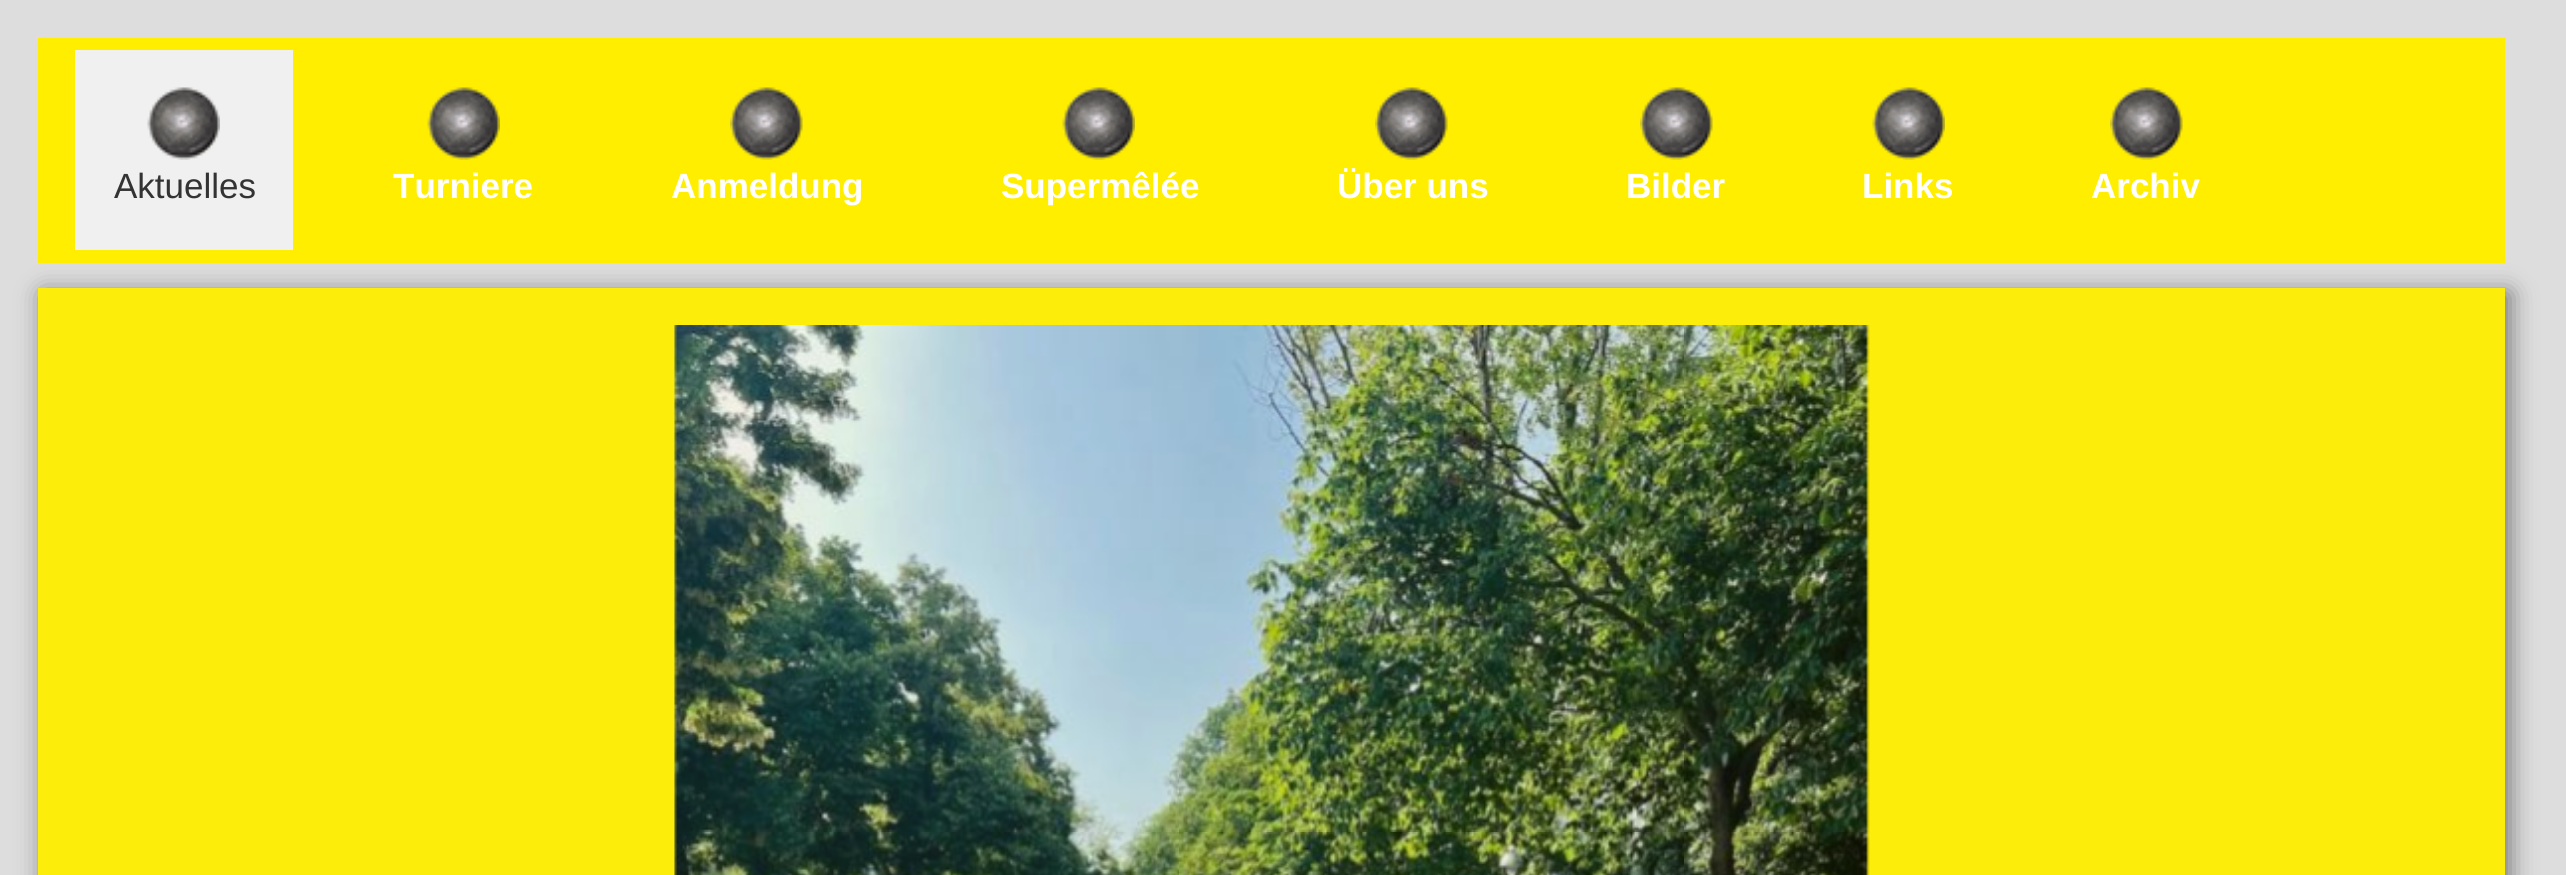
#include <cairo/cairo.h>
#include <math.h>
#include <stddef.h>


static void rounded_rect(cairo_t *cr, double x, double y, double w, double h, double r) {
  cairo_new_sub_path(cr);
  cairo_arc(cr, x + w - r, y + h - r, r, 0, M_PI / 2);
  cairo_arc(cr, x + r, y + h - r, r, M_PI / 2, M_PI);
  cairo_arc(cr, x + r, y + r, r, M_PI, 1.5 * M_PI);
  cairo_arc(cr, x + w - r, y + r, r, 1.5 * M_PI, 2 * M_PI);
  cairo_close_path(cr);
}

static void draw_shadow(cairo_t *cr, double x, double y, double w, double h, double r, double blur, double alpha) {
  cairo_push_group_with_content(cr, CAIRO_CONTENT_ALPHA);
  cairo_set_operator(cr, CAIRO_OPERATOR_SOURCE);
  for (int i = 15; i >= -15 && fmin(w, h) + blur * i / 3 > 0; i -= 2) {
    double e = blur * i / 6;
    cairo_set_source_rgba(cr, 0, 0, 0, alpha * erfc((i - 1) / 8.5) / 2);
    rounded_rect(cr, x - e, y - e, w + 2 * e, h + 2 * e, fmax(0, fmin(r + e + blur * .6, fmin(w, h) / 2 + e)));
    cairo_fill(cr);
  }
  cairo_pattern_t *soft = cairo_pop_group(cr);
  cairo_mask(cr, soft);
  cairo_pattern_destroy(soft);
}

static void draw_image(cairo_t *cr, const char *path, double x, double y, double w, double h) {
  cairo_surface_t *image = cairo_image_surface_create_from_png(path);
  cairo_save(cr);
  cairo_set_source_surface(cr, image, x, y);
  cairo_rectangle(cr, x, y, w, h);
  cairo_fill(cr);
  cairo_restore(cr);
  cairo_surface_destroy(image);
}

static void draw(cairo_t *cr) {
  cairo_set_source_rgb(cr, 221 / 255.0, 221 / 255.0, 221 / 255.0);
  cairo_paint(cr);
  cairo_set_source_rgb(cr, 11 / 255.0, 11 / 255.0, 11 / 255.0);
  draw_shadow(cr, 43, 293, 2467, 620, 0, 12.5, 0.5);
  cairo_set_source_rgb(cr, 1, 238 / 255.0, 0);
  cairo_rectangle(cr, 38, 38, 2467, 225);
  cairo_fill(cr);
  cairo_set_source_rgb(cr, 240 / 255.0, 240 / 255.0, 240 / 255.0);
  cairo_rectangle(cr, 75, 50, 218, 200);
  cairo_fill(cr);
  draw_image(cr, "images/1.png", 147, 87, 73, 73);
  draw_image(cr, "images/2.png", 427, 87, 73, 73);
  draw_image(cr, "images/3.png", 730, 87, 73, 73);
  draw_image(cr, "images/4.png", 1062, 87, 73, 73);
  draw_image(cr, "images/5.png", 1375, 87, 73, 73);
  draw_image(cr, "images/5.png", 1640, 87, 73, 73);
  draw_image(cr, "images/2.png", 1872, 87, 73, 73);
  draw_image(cr, "images/6.png", 2110, 87, 73, 73);
  cairo_set_source_rgb(cr, 253 / 255.0, 237 / 255.0, 11 / 255.0);
  cairo_rectangle(cr, 38, 288, 2467, 587);
  cairo_fill(cr);
  draw_image(cr, "images/7.png", 674, 325, 1196, 550);
  cairo_select_font_face(cr, "Liberation Sans", CAIRO_FONT_SLANT_NORMAL, CAIRO_FONT_WEIGHT_NORMAL);
  cairo_set_font_size(cr, 35);
  cairo_set_source_rgb(cr, 51 / 255.0, 51 / 255.0, 51 / 255.0);
  cairo_move_to(cr, 114, 198);
  cairo_show_text(cr, "Aktuelles");
  cairo_select_font_face(cr, "Liberation Sans", CAIRO_FONT_SLANT_NORMAL, CAIRO_FONT_WEIGHT_BOLD);
  cairo_set_source_rgb(cr, 1, 1, 1);
  cairo_move_to(cr, 393, 198);
  cairo_show_text(cr, "Turniere");
  cairo_move_to(cr, 671, 198);
  cairo_show_text(cr, "Anmeldung");
  cairo_move_to(cr, 1001, 198);
  cairo_show_text(cr, "Supermêlée");
  cairo_move_to(cr, 1337, 198);
  cairo_show_text(cr, "Über uns");
  cairo_move_to(cr, 1626, 198);
  cairo_show_text(cr, "Bilder");
  cairo_move_to(cr, 1862, 198);
  cairo_show_text(cr, "Links");
  cairo_move_to(cr, 2091, 198);
  cairo_show_text(cr, "Archiv");
}

int main(void) {
  cairo_surface_t *surface = cairo_image_surface_create(CAIRO_FORMAT_RGB24, 2566, 875);
  cairo_t *cr = cairo_create(surface);
  cairo_font_options_t *options = cairo_font_options_create();
  cairo_font_options_set_hint_metrics(options, CAIRO_HINT_METRICS_OFF);
  cairo_font_options_set_hint_style(options, CAIRO_HINT_STYLE_NONE);
  cairo_set_font_options(cr, options);
  cairo_set_miter_limit(cr, 4);
  draw(cr);
  cairo_surface_write_to_png(surface, "out.png");
  cairo_font_options_destroy(options);
  cairo_destroy(cr);
  cairo_surface_destroy(surface);
  return 0;
}
